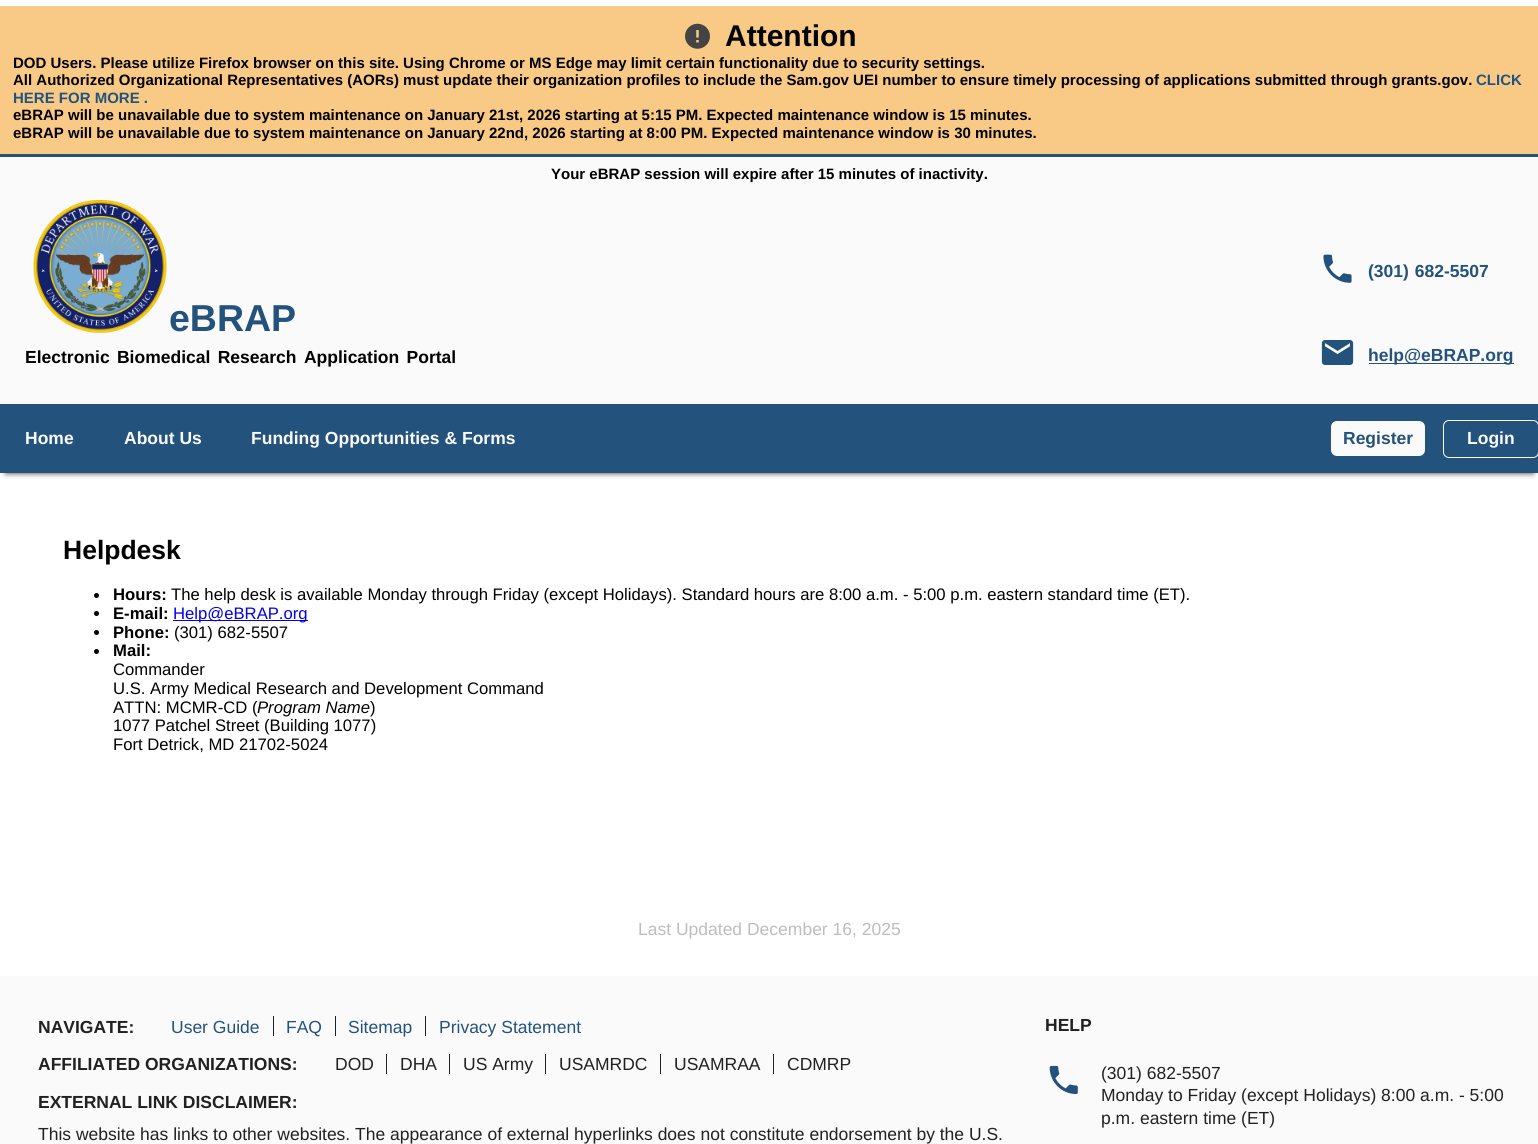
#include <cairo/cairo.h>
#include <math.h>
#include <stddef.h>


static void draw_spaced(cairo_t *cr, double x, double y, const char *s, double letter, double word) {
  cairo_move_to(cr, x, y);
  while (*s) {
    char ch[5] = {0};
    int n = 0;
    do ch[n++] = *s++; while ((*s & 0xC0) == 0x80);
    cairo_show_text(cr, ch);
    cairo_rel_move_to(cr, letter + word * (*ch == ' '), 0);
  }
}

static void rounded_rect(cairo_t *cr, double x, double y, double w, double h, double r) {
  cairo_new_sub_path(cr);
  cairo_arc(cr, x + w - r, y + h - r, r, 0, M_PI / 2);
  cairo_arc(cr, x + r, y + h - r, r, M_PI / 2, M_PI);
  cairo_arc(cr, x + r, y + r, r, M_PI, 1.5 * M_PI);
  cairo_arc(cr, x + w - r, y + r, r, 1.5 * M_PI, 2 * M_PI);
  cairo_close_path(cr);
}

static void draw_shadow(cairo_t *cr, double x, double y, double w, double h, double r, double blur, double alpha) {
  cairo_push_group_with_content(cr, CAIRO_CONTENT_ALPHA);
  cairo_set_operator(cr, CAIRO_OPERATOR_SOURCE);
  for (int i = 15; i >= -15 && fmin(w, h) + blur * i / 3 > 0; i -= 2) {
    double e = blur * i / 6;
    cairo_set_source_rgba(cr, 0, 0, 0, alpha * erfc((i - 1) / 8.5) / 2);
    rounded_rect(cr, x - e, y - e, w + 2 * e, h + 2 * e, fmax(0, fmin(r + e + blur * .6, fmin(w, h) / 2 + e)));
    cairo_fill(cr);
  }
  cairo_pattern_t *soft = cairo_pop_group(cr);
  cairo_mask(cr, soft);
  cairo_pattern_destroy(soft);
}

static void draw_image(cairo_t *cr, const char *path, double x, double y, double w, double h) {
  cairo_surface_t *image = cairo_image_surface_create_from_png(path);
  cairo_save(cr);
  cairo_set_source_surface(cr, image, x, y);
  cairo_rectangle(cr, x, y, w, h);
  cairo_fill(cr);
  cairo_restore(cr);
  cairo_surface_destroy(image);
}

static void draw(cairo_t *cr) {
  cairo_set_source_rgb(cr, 1, 1, 1);
  cairo_paint(cr);
  cairo_set_source_rgb(cr, 250 / 255.0, 250 / 255.0, 250 / 255.0);
  cairo_rectangle(cr, 0, 157, 1538, 247);
  cairo_fill(cr);
  cairo_set_source_rgb(cr, 249 / 255.0, 202 / 255.0, 133 / 255.0);
  cairo_rectangle(cr, 0, 6, 1538, 148);
  cairo_fill(cr);
  cairo_set_source_rgb(cr, 35 / 255.0, 82 / 255.0, 124 / 255.0);
  cairo_rectangle(cr, 0, 154, 1538, 3);
  cairo_fill(cr);
  draw_image(cr, "images/1.png", 685, 23, 25, 26);
  draw_image(cr, "images/2.png", 33, 200, 134, 133);
  draw_image(cr, "images/3.png", 1323, 254, 29, 29);
  draw_image(cr, "images/4.png", 1321, 340, 33, 25);
  cairo_rectangle(cr, 1369, 363, 145, 1);
  cairo_fill(cr);
  cairo_set_source_rgb(cr, 51 / 255.0, 51 / 255.0, 51 / 255.0);
  draw_shadow(cr, 6, 416, 1527, 57, 0, 3, 1);
  cairo_set_source_rgb(cr, 35 / 255.0, 82 / 255.0, 124 / 255.0);
  cairo_rectangle(cr, 0, 404, 1538, 69);
  cairo_fill(cr);
  cairo_set_source_rgb(cr, 250 / 255.0, 250 / 255.0, 250 / 255.0);
  rounded_rect(cr, 1331, 421, 94, 35, 6);
  cairo_fill(cr);
  rounded_rect(cr, 1443.5, 420.5, 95, 37, 5.5);
  cairo_set_line_width(cr, 1);
  cairo_stroke(cr);
  cairo_set_source_rgb(cr, 0, 0, 0);
  cairo_arc(cr, 96.5, 595.5, 2.5, 0, 2 * M_PI);
  cairo_fill(cr);
  cairo_arc(cr, 96.5, 613.5, 2.5, 0, 2 * M_PI);
  cairo_fill(cr);
  cairo_set_source_rgb(cr, 0, 0, 238 / 255.0);
  cairo_rectangle(cr, 173, 620, 135, 1);
  cairo_fill(cr);
  cairo_set_source_rgb(cr, 0, 0, 0);
  cairo_arc(cr, 96.5, 632.5, 2.5, 0, 2 * M_PI);
  cairo_fill(cr);
  cairo_arc(cr, 96.5, 651.5, 2.5, 0, 2 * M_PI);
  cairo_fill(cr);
  cairo_set_source_rgb(cr, 250 / 255.0, 250 / 255.0, 250 / 255.0);
  cairo_rectangle(cr, 0, 976, 1538, 168);
  cairo_fill(cr);
  cairo_set_source_rgb(cr, 33 / 255.0, 33 / 255.0, 33 / 255.0);
  cairo_rectangle(cr, 273, 1016, 1, 20);
  cairo_fill(cr);
  cairo_rectangle(cr, 335, 1016, 1, 20);
  cairo_fill(cr);
  cairo_rectangle(cr, 425, 1016, 1, 20);
  cairo_fill(cr);
  cairo_rectangle(cr, 386, 1054, 1, 20);
  cairo_fill(cr);
  cairo_rectangle(cr, 449, 1054, 1, 20);
  cairo_fill(cr);
  cairo_rectangle(cr, 545, 1054, 1, 20);
  cairo_fill(cr);
  cairo_rectangle(cr, 660, 1054, 1, 20);
  cairo_fill(cr);
  cairo_rectangle(cr, 773, 1054, 1, 20);
  cairo_fill(cr);
  draw_image(cr, "images/5.png", 1049, 1065, 29, 30);
  cairo_select_font_face(cr, "Liberation Sans", CAIRO_FONT_SLANT_NORMAL, CAIRO_FONT_WEIGHT_BOLD);
  cairo_set_font_size(cr, 30);
  cairo_set_source_rgb(cr, 0, 0, 0);
  cairo_move_to(cr, 725, 46);
  cairo_show_text(cr, "Attention");
  cairo_set_font_size(cr, 15);
  cairo_move_to(cr, 13, 68);
  cairo_show_text(cr, "DOD Users. Please utilize Firefox browser on this site. Using Chrome or MS Edge may limit certain functionality due to security settings.");
  cairo_move_to(cr, 13, 85);
  cairo_show_text(cr, "All Authorized Organizational Representatives (AORs) must update their organization profiles to include the Sam.gov UEI number to ensure timely processing of applications submitted through grants.gov.");
  cairo_set_source_rgb(cr, 35 / 255.0, 82 / 255.0, 124 / 255.0);
  cairo_move_to(cr, 1476, 85);
  cairo_show_text(cr, "CLICK");
  cairo_move_to(cr, 13, 103);
  cairo_show_text(cr, "HERE FOR MORE .");
  cairo_set_source_rgb(cr, 0, 0, 0);
  cairo_move_to(cr, 13, 120);
  cairo_show_text(cr, "eBRAP will be unavailable due to system maintenance on January 21st, 2026 starting at 5:15 PM. Expected maintenance window is 15 minutes.");
  cairo_move_to(cr, 13, 138);
  cairo_show_text(cr, "eBRAP will be unavailable due to system maintenance on January 22nd, 2026 starting at 8:00 PM. Expected maintenance window is 30 minutes.");
  cairo_move_to(cr, 551, 179);
  cairo_show_text(cr, "Your eBRAP session will expire after 15 minutes of inactivity.");
  cairo_set_font_size(cr, 37.5);
  cairo_set_source_rgb(cr, 35 / 255.0, 82 / 255.0, 124 / 255.0);
  cairo_move_to(cr, 169, 331);
  cairo_show_text(cr, "eBRAP");
  cairo_set_font_size(cr, 17.5);
  cairo_set_source_rgb(cr, 0, 0, 0);
  draw_spaced(cr, 25, 363, "Electronic Biomedical Research Application Portal", 0, 2.5);
  cairo_set_source_rgb(cr, 35 / 255.0, 82 / 255.0, 124 / 255.0);
  draw_spaced(cr, 1368, 277, "(301) 682-5507", 0, 1);
  cairo_move_to(cr, 1368, 361);
  cairo_show_text(cr, "help@eBRAP.org");
  cairo_set_source_rgb(cr, 250 / 255.0, 250 / 255.0, 250 / 255.0);
  cairo_move_to(cr, 25, 444);
  cairo_show_text(cr, "Home");
  cairo_move_to(cr, 124, 444);
  cairo_show_text(cr, "About Us");
  cairo_move_to(cr, 251, 444);
  cairo_show_text(cr, "Funding Opportunities & Forms");
  cairo_set_source_rgb(cr, 35 / 255.0, 82 / 255.0, 124 / 255.0);
  cairo_move_to(cr, 1343, 444);
  cairo_show_text(cr, "Register");
  cairo_set_source_rgb(cr, 250 / 255.0, 250 / 255.0, 250 / 255.0);
  cairo_move_to(cr, 1467, 444);
  cairo_show_text(cr, "Login");
  cairo_set_font_size(cr, 26.5);
  cairo_set_source_rgb(cr, 0, 0, 0);
  cairo_move_to(cr, 63, 559);
  cairo_show_text(cr, "Helpdesk");
  cairo_set_font_size(cr, 16.67);
  cairo_move_to(cr, 113, 600);
  cairo_show_text(cr, "Hours:");
  cairo_select_font_face(cr, "Liberation Sans", CAIRO_FONT_SLANT_NORMAL, CAIRO_FONT_WEIGHT_NORMAL);
  cairo_move_to(cr, 171, 600);
  cairo_show_text(cr, "The help desk is available Monday through Friday (except Holidays). Standard hours are 8:00 a.m. - 5:00 p.m. eastern standard time (ET).");
  cairo_select_font_face(cr, "Liberation Sans", CAIRO_FONT_SLANT_NORMAL, CAIRO_FONT_WEIGHT_BOLD);
  cairo_move_to(cr, 113, 619);
  cairo_show_text(cr, "E-mail:");
  cairo_select_font_face(cr, "Liberation Sans", CAIRO_FONT_SLANT_NORMAL, CAIRO_FONT_WEIGHT_NORMAL);
  cairo_set_source_rgb(cr, 0, 0, 238 / 255.0);
  cairo_move_to(cr, 173, 619);
  cairo_show_text(cr, "Help@eBRAP.org");
  cairo_select_font_face(cr, "Liberation Sans", CAIRO_FONT_SLANT_NORMAL, CAIRO_FONT_WEIGHT_BOLD);
  cairo_set_source_rgb(cr, 0, 0, 0);
  cairo_move_to(cr, 113, 638);
  cairo_show_text(cr, "Phone:");
  cairo_select_font_face(cr, "Liberation Sans", CAIRO_FONT_SLANT_NORMAL, CAIRO_FONT_WEIGHT_NORMAL);
  cairo_move_to(cr, 174, 638);
  cairo_show_text(cr, "(301) 682-5507");
  cairo_select_font_face(cr, "Liberation Sans", CAIRO_FONT_SLANT_NORMAL, CAIRO_FONT_WEIGHT_BOLD);
  cairo_move_to(cr, 113, 656);
  cairo_show_text(cr, "Mail:");
  cairo_select_font_face(cr, "Liberation Sans", CAIRO_FONT_SLANT_NORMAL, CAIRO_FONT_WEIGHT_NORMAL);
  cairo_move_to(cr, 113, 675);
  cairo_show_text(cr, "Commander");
  cairo_move_to(cr, 113, 694);
  cairo_show_text(cr, "U.S. Army Medical Research and Development Command");
  cairo_move_to(cr, 113, 713);
  cairo_show_text(cr, "ATTN: MCMR-CD (");
  cairo_select_font_face(cr, "Liberation Sans", CAIRO_FONT_SLANT_ITALIC, CAIRO_FONT_WEIGHT_NORMAL);
  cairo_move_to(cr, 257, 713);
  cairo_show_text(cr, "Program Name");
  cairo_select_font_face(cr, "Liberation Sans", CAIRO_FONT_SLANT_NORMAL, CAIRO_FONT_WEIGHT_NORMAL);
  cairo_move_to(cr, 370, 713);
  cairo_show_text(cr, ")");
  cairo_move_to(cr, 113, 731);
  cairo_show_text(cr, "1077 Patchel Street (Building 1077)");
  cairo_move_to(cr, 113, 750);
  cairo_show_text(cr, "Fort Detrick, MD 21702-5024");
  cairo_set_font_size(cr, 17.5);
  cairo_set_source_rgb(cr, 189 / 255.0, 189 / 255.0, 189 / 255.0);
  cairo_move_to(cr, 638, 935);
  cairo_show_text(cr, "Last Updated December 16, 2025");
  cairo_select_font_face(cr, "Liberation Sans", CAIRO_FONT_SLANT_NORMAL, CAIRO_FONT_WEIGHT_BOLD);
  cairo_set_source_rgb(cr, 33 / 255.0, 33 / 255.0, 33 / 255.0);
  cairo_move_to(cr, 38, 1033);
  cairo_show_text(cr, "NAVIGATE:");
  cairo_select_font_face(cr, "Liberation Sans", CAIRO_FONT_SLANT_NORMAL, CAIRO_FONT_WEIGHT_NORMAL);
  cairo_set_source_rgb(cr, 35 / 255.0, 82 / 255.0, 124 / 255.0);
  cairo_move_to(cr, 171, 1033);
  cairo_show_text(cr, "User Guide");
  cairo_move_to(cr, 286, 1033);
  cairo_show_text(cr, "FAQ");
  cairo_move_to(cr, 348, 1033);
  cairo_show_text(cr, "Sitemap");
  cairo_move_to(cr, 439, 1033);
  cairo_show_text(cr, "Privacy Statement");
  cairo_select_font_face(cr, "Liberation Sans", CAIRO_FONT_SLANT_NORMAL, CAIRO_FONT_WEIGHT_BOLD);
  cairo_set_source_rgb(cr, 33 / 255.0, 33 / 255.0, 33 / 255.0);
  cairo_move_to(cr, 38, 1070);
  cairo_show_text(cr, "AFFILIATED ORGANIZATIONS:");
  cairo_select_font_face(cr, "Liberation Sans", CAIRO_FONT_SLANT_NORMAL, CAIRO_FONT_WEIGHT_NORMAL);
  cairo_move_to(cr, 335, 1070);
  cairo_show_text(cr, "DOD");
  cairo_move_to(cr, 400, 1070);
  cairo_show_text(cr, "DHA");
  cairo_move_to(cr, 463, 1070);
  cairo_show_text(cr, "US Army");
  cairo_move_to(cr, 559, 1070);
  cairo_show_text(cr, "USAMRDC");
  cairo_move_to(cr, 674, 1070);
  cairo_show_text(cr, "USAMRAA");
  cairo_move_to(cr, 787, 1070);
  cairo_show_text(cr, "CDMRP");
  cairo_select_font_face(cr, "Liberation Sans", CAIRO_FONT_SLANT_NORMAL, CAIRO_FONT_WEIGHT_BOLD);
  cairo_move_to(cr, 38, 1108);
  cairo_show_text(cr, "EXTERNAL LINK DISCLAIMER:");
  cairo_select_font_face(cr, "Liberation Sans", CAIRO_FONT_SLANT_NORMAL, CAIRO_FONT_WEIGHT_NORMAL);
  cairo_move_to(cr, 38, 1140);
  cairo_show_text(cr, "This website has links to other websites. The appearance of external hyperlinks does not constitute endorsement by the U.S.");
  cairo_select_font_face(cr, "Liberation Sans", CAIRO_FONT_SLANT_NORMAL, CAIRO_FONT_WEIGHT_BOLD);
  cairo_move_to(cr, 1045, 1031);
  cairo_show_text(cr, "HELP");
  cairo_select_font_face(cr, "Liberation Sans", CAIRO_FONT_SLANT_NORMAL, CAIRO_FONT_WEIGHT_NORMAL);
  cairo_move_to(cr, 1101, 1079);
  cairo_show_text(cr, "(301) 682-5507");
  cairo_move_to(cr, 1101, 1101);
  cairo_show_text(cr, "Monday to Friday (except Holidays) 8:00 a.m. - 5:00");
  cairo_move_to(cr, 1101, 1124);
  cairo_show_text(cr, "p.m. eastern time (ET)");
}

int main(void) {
  cairo_surface_t *surface = cairo_image_surface_create(CAIRO_FORMAT_RGB24, 1538, 1144);
  cairo_t *cr = cairo_create(surface);
  cairo_font_options_t *options = cairo_font_options_create();
  cairo_font_options_set_hint_metrics(options, CAIRO_HINT_METRICS_OFF);
  cairo_font_options_set_hint_style(options, CAIRO_HINT_STYLE_NONE);
  cairo_set_font_options(cr, options);
  cairo_set_miter_limit(cr, 4);
  draw(cr);
  cairo_surface_write_to_png(surface, "out.png");
  cairo_font_options_destroy(options);
  cairo_destroy(cr);
  cairo_surface_destroy(surface);
  return 0;
}
